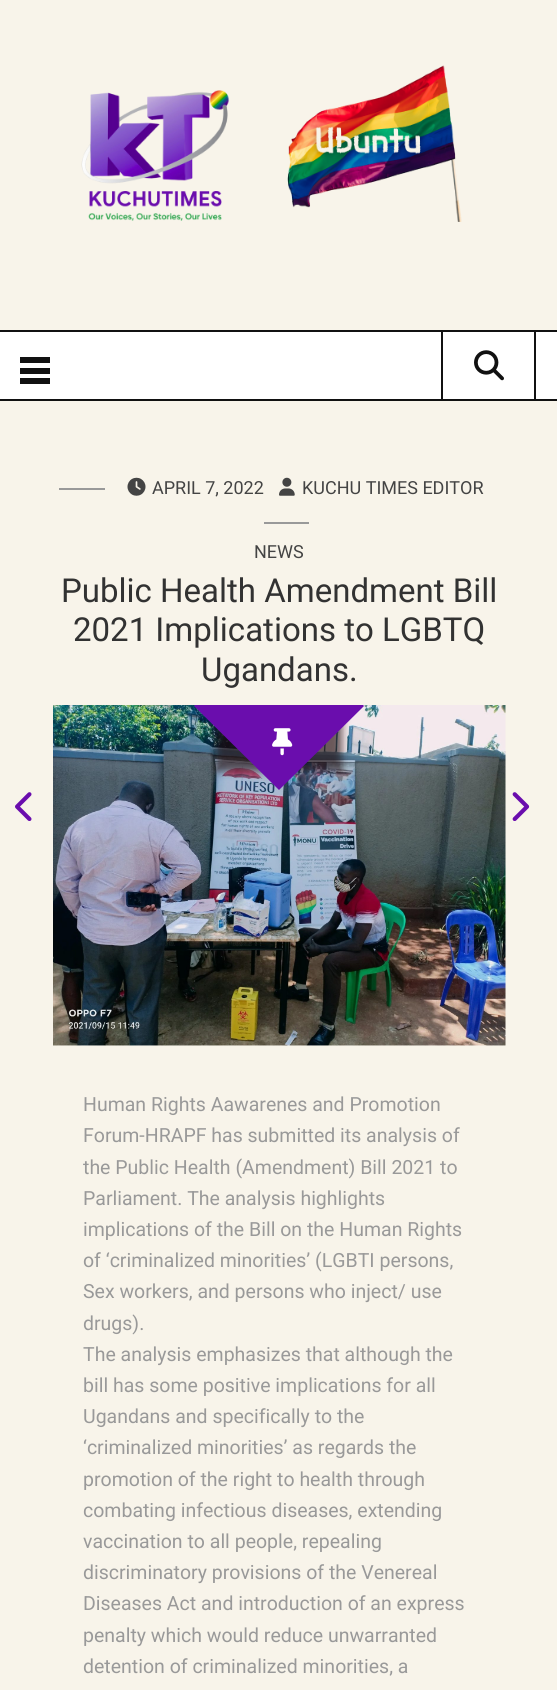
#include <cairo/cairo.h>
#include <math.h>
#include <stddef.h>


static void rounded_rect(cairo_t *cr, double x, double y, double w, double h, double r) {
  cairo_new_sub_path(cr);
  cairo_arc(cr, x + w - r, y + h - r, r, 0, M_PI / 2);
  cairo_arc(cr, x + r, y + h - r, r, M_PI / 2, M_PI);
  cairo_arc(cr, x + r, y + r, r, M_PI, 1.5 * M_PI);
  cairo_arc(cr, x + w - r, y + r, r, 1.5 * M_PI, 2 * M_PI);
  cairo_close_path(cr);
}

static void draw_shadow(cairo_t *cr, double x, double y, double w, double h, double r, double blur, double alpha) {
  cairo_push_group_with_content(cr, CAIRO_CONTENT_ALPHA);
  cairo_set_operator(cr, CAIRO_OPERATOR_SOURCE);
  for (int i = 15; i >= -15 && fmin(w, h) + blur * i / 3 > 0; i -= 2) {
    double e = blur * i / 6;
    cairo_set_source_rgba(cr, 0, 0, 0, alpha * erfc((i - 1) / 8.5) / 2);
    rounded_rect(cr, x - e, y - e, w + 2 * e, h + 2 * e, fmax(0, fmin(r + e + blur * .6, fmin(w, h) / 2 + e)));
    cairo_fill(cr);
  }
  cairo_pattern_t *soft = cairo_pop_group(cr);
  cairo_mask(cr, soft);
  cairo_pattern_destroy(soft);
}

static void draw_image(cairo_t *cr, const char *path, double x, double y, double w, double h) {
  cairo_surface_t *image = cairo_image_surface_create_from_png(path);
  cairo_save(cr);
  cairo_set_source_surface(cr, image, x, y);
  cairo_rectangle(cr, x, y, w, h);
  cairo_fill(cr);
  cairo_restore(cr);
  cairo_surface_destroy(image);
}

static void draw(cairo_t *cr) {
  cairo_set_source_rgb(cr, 248 / 255.0, 244 / 255.0, 234 / 255.0);
  cairo_paint(cr);
  draw_image(cr, "images/1.png", 81, 65, 381, 157);
  cairo_set_source_rgb(cr, 1, 1, 1);
  cairo_rectangle(cr, 0, 332, 557, 67);
  cairo_fill(cr);
  cairo_set_source_rgb(cr, 17 / 255.0, 17 / 255.0, 17 / 255.0);
  cairo_rectangle(cr, 0, 330, 557, 2);
  cairo_fill(cr);
  cairo_rectangle(cr, 0, 399, 557, 2);
  cairo_fill(cr);
  cairo_rectangle(cr, 20, 378, 30, 6);
  cairo_fill(cr);
  cairo_rectangle(cr, 20, 368, 30, 6);
  cairo_fill(cr);
  cairo_rectangle(cr, 20, 357, 30, 6);
  cairo_fill(cr);
  cairo_rectangle(cr, 534, 332, 2, 67);
  cairo_fill(cr);
  cairo_rectangle(cr, 441, 332, 2, 67);
  cairo_fill(cr);
  draw_image(cr, "images/2.png", 474, 350, 30, 31);
  cairo_set_source_rgb(cr, 153 / 255.0, 153 / 255.0, 153 / 255.0);
  cairo_rectangle(cr, 59, 488, 46, 2);
  cairo_fill(cr);
  draw_image(cr, "images/3.png", 127, 477, 19, 19);
  draw_image(cr, "images/4.png", 279, 477, 16, 19);
  cairo_rectangle(cr, 264, 522, 45, 2);
  cairo_fill(cr);
  draw_image(cr, "images/6.png", 53, 705, 453, 341);
  cairo_save(cr);
  cairo_rectangle(cr, 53, 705, 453, 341);
  cairo_clip(cr);
  cairo_set_source_rgb(cr, 30 / 255.0, 8 / 255.0, 8 / 255.0);
  draw_shadow(cr, 216, 645, 126, 126, 0, 4, 0.64);
  cairo_restore(cr);
  cairo_save(cr);
  cairo_rectangle(cr, 53, 705, 453, 341);
  cairo_clip(cr);
  cairo_set_source_rgb(cr, 106 / 255.0, 13 / 255.0, 173 / 255.0);
  cairo_new_path(cr);
  cairo_move_to(cr, 279, 621);
  cairo_line_to(cr, 364, 706);
  cairo_line_to(cr, 279, 790);
  cairo_line_to(cr, 194, 706);
  cairo_close_path(cr);
  cairo_fill(cr);
  cairo_restore(cr);
  draw_image(cr, "images/5.png", 272, 728, 21, 28);
  draw_image(cr, "images/7.png", 15, 792, 17, 29);
  draw_image(cr, "images/8.png", 512, 792, 18, 29);
  cairo_select_font_face(cr, "Roboto", CAIRO_FONT_SLANT_NORMAL, CAIRO_FONT_WEIGHT_NORMAL);
  cairo_set_font_size(cr, 18);
  cairo_set_source_rgb(cr, 68 / 255.0, 68 / 255.0, 68 / 255.0);
  cairo_move_to(cr, 152, 494);
  cairo_show_text(cr, "APRIL 7, 2022");
  cairo_move_to(cr, 302, 494);
  cairo_show_text(cr, "KUCHU TIMES EDITOR");
  cairo_move_to(cr, 254, 558);
  cairo_show_text(cr, "NEWS");
  cairo_set_font_size(cr, 33);
  cairo_set_source_rgb(cr, 50 / 255.0, 50 / 255.0, 50 / 255.0);
  cairo_move_to(cr, 61, 602);
  cairo_show_text(cr, "Public Health Amendment Bill");
  cairo_move_to(cr, 73, 641);
  cairo_show_text(cr, "2021 Implications to LGBTQ");
  cairo_move_to(cr, 201, 681);
  cairo_show_text(cr, "Ugandans.");
  cairo_set_font_size(cr, 19.5);
  cairo_set_source_rgb(cr, 153 / 255.0, 153 / 255.0, 153 / 255.0);
  cairo_move_to(cr, 83, 1111);
  cairo_show_text(cr, "Human Rights Aawarenes and Promotion");
  cairo_move_to(cr, 83, 1142);
  cairo_show_text(cr, "Forum-HRAPF has submitted its analysis of");
  cairo_move_to(cr, 83, 1174);
  cairo_show_text(cr, "the Public Health (Amendment) Bill 2021 to");
  cairo_move_to(cr, 83, 1205);
  cairo_show_text(cr, "Parliament. The analysis highlights");
  cairo_move_to(cr, 83, 1236);
  cairo_show_text(cr, "implications of the Bill on the Human Rights");
  cairo_move_to(cr, 83, 1267);
  cairo_show_text(cr, "of ‘criminalized minorities’ (LGBTI persons,");
  cairo_move_to(cr, 83, 1298);
  cairo_show_text(cr, "Sex workers, and persons who inject/ use");
  cairo_move_to(cr, 83, 1330);
  cairo_show_text(cr, "drugs).");
  cairo_move_to(cr, 83, 1361);
  cairo_show_text(cr, "The analysis emphasizes that although the");
  cairo_move_to(cr, 83, 1392);
  cairo_show_text(cr, "bill has some positive implications for all");
  cairo_move_to(cr, 83, 1423);
  cairo_show_text(cr, "Ugandans and specifically to the");
  cairo_move_to(cr, 83, 1454);
  cairo_show_text(cr, "‘criminalized minorities’ as regards the");
  cairo_move_to(cr, 83, 1486);
  cairo_show_text(cr, "promotion of the right to health through");
  cairo_move_to(cr, 83, 1517);
  cairo_show_text(cr, "combating infectious diseases, extending");
  cairo_move_to(cr, 83, 1548);
  cairo_show_text(cr, "vaccination to all people, repealing");
  cairo_move_to(cr, 83, 1579);
  cairo_show_text(cr, "discriminatory provisions of the Venereal");
  cairo_move_to(cr, 83, 1610);
  cairo_show_text(cr, "Diseases Act and introduction of an express");
  cairo_move_to(cr, 83, 1642);
  cairo_show_text(cr, "penalty which would reduce unwarranted");
  cairo_move_to(cr, 83, 1673);
  cairo_show_text(cr, "detention of criminalized minorities, a");
}

int main(void) {
  cairo_surface_t *surface = cairo_image_surface_create(CAIRO_FORMAT_RGB24, 557, 1690);
  cairo_t *cr = cairo_create(surface);
  cairo_font_options_t *options = cairo_font_options_create();
  cairo_font_options_set_hint_metrics(options, CAIRO_HINT_METRICS_OFF);
  cairo_font_options_set_hint_style(options, CAIRO_HINT_STYLE_NONE);
  cairo_set_font_options(cr, options);
  cairo_set_miter_limit(cr, 4);
  draw(cr);
  cairo_surface_write_to_png(surface, "out.png");
  cairo_font_options_destroy(options);
  cairo_destroy(cr);
  cairo_surface_destroy(surface);
  return 0;
}
